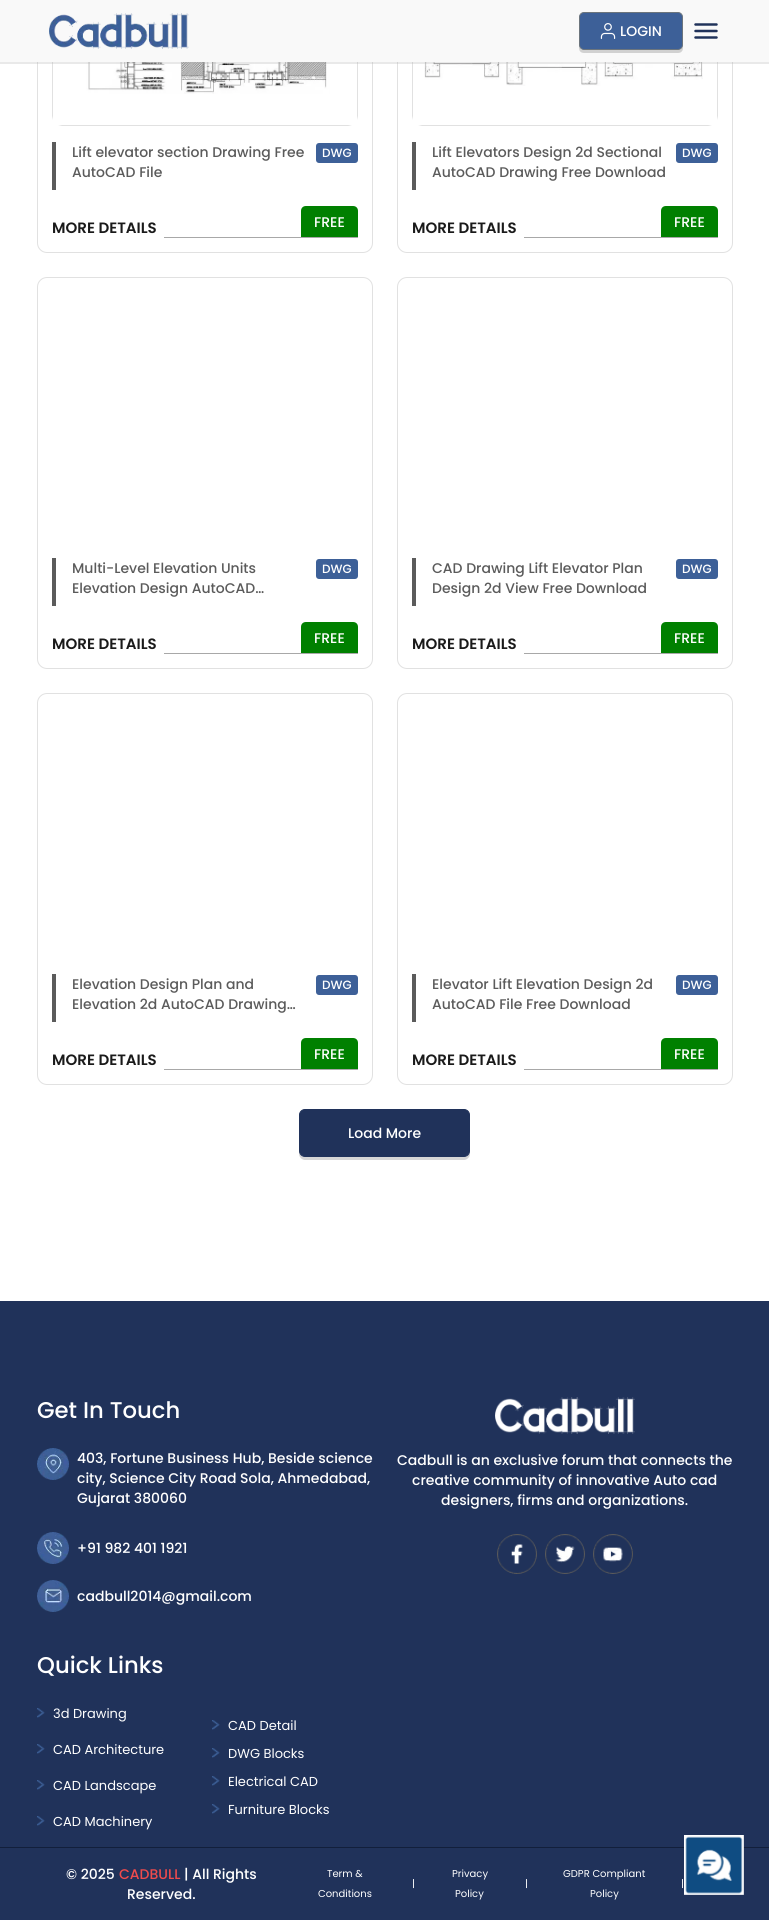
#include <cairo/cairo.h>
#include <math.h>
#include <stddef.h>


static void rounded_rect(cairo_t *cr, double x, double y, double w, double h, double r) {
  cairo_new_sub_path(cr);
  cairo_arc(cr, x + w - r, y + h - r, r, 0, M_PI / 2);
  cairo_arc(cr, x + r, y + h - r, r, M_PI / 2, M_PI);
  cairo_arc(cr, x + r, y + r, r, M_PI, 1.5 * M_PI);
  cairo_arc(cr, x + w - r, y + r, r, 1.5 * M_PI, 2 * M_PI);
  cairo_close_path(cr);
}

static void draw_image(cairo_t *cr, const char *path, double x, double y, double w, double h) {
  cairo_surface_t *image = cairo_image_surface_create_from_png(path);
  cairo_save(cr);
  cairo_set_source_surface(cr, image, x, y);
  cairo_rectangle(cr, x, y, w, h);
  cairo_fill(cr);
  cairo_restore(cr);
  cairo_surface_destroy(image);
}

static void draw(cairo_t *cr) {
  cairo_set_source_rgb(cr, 1, 1, 1);
  cairo_paint(cr);
  rounded_rect(cr, 37.5, -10.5, 335, 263, 9.5);
  cairo_set_source_rgb(cr, 225 / 255.0, 225 / 255.0, 225 / 255.0);
  cairo_set_line_width(cr, 1);
  cairo_stroke(cr);
  cairo_set_fill_rule(cr, CAIRO_FILL_RULE_EVEN_ODD);
  cairo_new_path(cr);
  cairo_move_to(cr, 52, -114);
  cairo_line_to(cr, 52, 116);
  cairo_line_to(cr, 53, 120);
  cairo_line_to(cr, 53, -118);
  cairo_close_path(cr);
  cairo_move_to(cr, 62, -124);
  cairo_line_to(cr, 58, -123);
  cairo_line_to(cr, 352, -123);
  cairo_line_to(cr, 348, -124);
  cairo_close_path(cr);
  cairo_move_to(cr, 358, -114);
  cairo_line_to(cr, 357, -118);
  cairo_line_to(cr, 357, 120);
  cairo_line_to(cr, 358, 116);
  cairo_close_path(cr);
  cairo_move_to(cr, 348, 126);
  cairo_line_to(cr, 352, 125);
  cairo_line_to(cr, 58, 125);
  cairo_line_to(cr, 62, 126);
  cairo_close_path(cr);
  cairo_fill(cr);
  rounded_rect(cr, 397.5, -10.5, 335, 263, 9.5);
  cairo_stroke(cr);
  cairo_new_path(cr);
  cairo_move_to(cr, 412, -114);
  cairo_line_to(cr, 412, 116);
  cairo_line_to(cr, 413, 120);
  cairo_line_to(cr, 413, -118);
  cairo_close_path(cr);
  cairo_move_to(cr, 422, -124);
  cairo_line_to(cr, 418, -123);
  cairo_line_to(cr, 712, -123);
  cairo_line_to(cr, 708, -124);
  cairo_close_path(cr);
  cairo_move_to(cr, 718, -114);
  cairo_line_to(cr, 717, -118);
  cairo_line_to(cr, 717, 120);
  cairo_line_to(cr, 718, 116);
  cairo_close_path(cr);
  cairo_move_to(cr, 708, 126);
  cairo_line_to(cr, 712, 125);
  cairo_line_to(cr, 418, 125);
  cairo_line_to(cr, 422, 126);
  cairo_close_path(cr);
  cairo_fill(cr);
  cairo_set_source_rgb(cr, 249 / 255.0, 249 / 255.0, 249 / 255.0);
  cairo_rectangle(cr, 0, 0, 769, 62);
  cairo_fill(cr);
  draw_image(cr, "images/3.png", 83, 62, 247, 32);
  draw_image(cr, "images/4.png", 424, 62, 279, 24);
  cairo_set_source_rgba(cr, 168 / 255.0, 168 / 255.0, 168 / 255.0, 0.25);
  cairo_rectangle(cr, 0, 62, 769, 2);
  cairo_fill(cr);
  draw_image(cr, "images/1.png", 49, 13, 140, 36);
  cairo_set_source_rgb(cr, 209 / 255.0, 209 / 255.0, 209 / 255.0);
  cairo_set_fill_rule(cr, CAIRO_FILL_RULE_WINDING);
  cairo_new_path(cr);
  cairo_move_to(cr, 579, 45);
  cairo_line_to(cr, 579, 48);
  cairo_curve_to(cr, 579, 51, 581, 53, 584, 53);
  cairo_line_to(cr, 678, 53);
  cairo_curve_to(cr, 681, 53, 683, 51, 683, 48);
  cairo_line_to(cr, 683, 45);
  cairo_curve_to(cr, 683, 48, 681, 50, 678, 50);
  cairo_line_to(cr, 584, 50);
  cairo_curve_to(cr, 581, 50, 579, 48, 579, 45);
  cairo_close_path(cr);
  cairo_fill(cr);
  cairo_set_source_rgb(cr, 61 / 255.0, 96 / 255.0, 152 / 255.0);
  rounded_rect(cr, 579.5, 12.5, 103, 37, 4.5);
  cairo_fill_preserve(cr);
  cairo_set_source_rgb(cr, 108 / 255.0, 117 / 255.0, 125 / 255.0);
  cairo_stroke(cr);
  draw_image(cr, "images/2.png", 600, 23, 16, 16);
  cairo_new_path(cr);
  cairo_move_to(cr, 695.5, 24.5);
  cairo_line_to(cr, 716.5, 24.5);
  cairo_move_to(cr, 695.5, 31);
  cairo_line_to(cr, 716.5, 31);
  cairo_move_to(cr, 695.5, 37.5);
  cairo_line_to(cr, 716.5, 37.5);
  cairo_set_source_rgb(cr, 32 / 255.0, 50 / 255.0, 90 / 255.0);
  cairo_set_line_width(cr, 2.5);
  cairo_set_line_cap(cr, CAIRO_LINE_CAP_ROUND);
  cairo_set_line_join(cr, CAIRO_LINE_JOIN_ROUND);
  cairo_stroke(cr);
  cairo_set_source_rgb(cr, 91 / 255.0, 91 / 255.0, 91 / 255.0);
  cairo_rectangle(cr, 52, 142, 4, 48);
  cairo_fill(cr);
  cairo_set_source_rgb(cr, 61 / 255.0, 96 / 255.0, 152 / 255.0);
  rounded_rect(cr, 316, 143, 42, 20, 3);
  cairo_fill(cr);
  cairo_set_source_rgb(cr, 0, 128 / 255.0, 0);
  cairo_new_path(cr);
  cairo_move_to(cr, 306, 206);
  cairo_line_to(cr, 353, 206);
  cairo_curve_to(cr, 356, 206, 358, 208, 358, 211);
  cairo_line_to(cr, 358, 238);
  cairo_line_to(cr, 301, 238);
  cairo_line_to(cr, 301, 211);
  cairo_curve_to(cr, 301, 208, 303, 206, 306, 206);
  cairo_close_path(cr);
  cairo_fill(cr);
  cairo_set_source_rgb(cr, 168 / 255.0, 168 / 255.0, 168 / 255.0);
  cairo_rectangle(cr, 164, 237, 194, 1);
  cairo_fill(cr);
  cairo_set_source_rgb(cr, 91 / 255.0, 91 / 255.0, 91 / 255.0);
  cairo_rectangle(cr, 412, 142, 4, 48);
  cairo_fill(cr);
  cairo_set_source_rgb(cr, 61 / 255.0, 96 / 255.0, 152 / 255.0);
  rounded_rect(cr, 676, 143, 42, 20, 3);
  cairo_fill(cr);
  cairo_set_source_rgb(cr, 0, 128 / 255.0, 0);
  cairo_new_path(cr);
  cairo_move_to(cr, 666, 206);
  cairo_line_to(cr, 713, 206);
  cairo_curve_to(cr, 716, 206, 718, 208, 718, 211);
  cairo_line_to(cr, 718, 238);
  cairo_line_to(cr, 661, 238);
  cairo_line_to(cr, 661, 211);
  cairo_curve_to(cr, 661, 208, 663, 206, 666, 206);
  cairo_close_path(cr);
  cairo_fill(cr);
  cairo_set_source_rgb(cr, 168 / 255.0, 168 / 255.0, 168 / 255.0);
  cairo_rectangle(cr, 524, 237, 194, 1);
  cairo_fill(cr);
  rounded_rect(cr, 37.5, 277.5, 335, 391, 9.5);
  cairo_set_source_rgb(cr, 225 / 255.0, 225 / 255.0, 225 / 255.0);
  cairo_set_line_width(cr, 1);
  cairo_set_line_cap(cr, CAIRO_LINE_CAP_BUTT);
  cairo_set_line_join(cr, CAIRO_LINE_JOIN_MITER);
  cairo_stroke(cr);
  cairo_set_source_rgb(cr, 91 / 255.0, 91 / 255.0, 91 / 255.0);
  cairo_rectangle(cr, 52, 558, 4, 48);
  cairo_fill(cr);
  cairo_set_source_rgb(cr, 61 / 255.0, 96 / 255.0, 152 / 255.0);
  rounded_rect(cr, 316, 559, 42, 20, 3);
  cairo_fill(cr);
  cairo_set_source_rgb(cr, 0, 128 / 255.0, 0);
  cairo_new_path(cr);
  cairo_move_to(cr, 306, 622);
  cairo_line_to(cr, 353, 622);
  cairo_curve_to(cr, 356, 622, 358, 624, 358, 627);
  cairo_line_to(cr, 358, 654);
  cairo_line_to(cr, 301, 654);
  cairo_line_to(cr, 301, 627);
  cairo_curve_to(cr, 301, 624, 303, 622, 306, 622);
  cairo_close_path(cr);
  cairo_fill(cr);
  cairo_set_source_rgb(cr, 168 / 255.0, 168 / 255.0, 168 / 255.0);
  cairo_rectangle(cr, 164, 653, 194, 1);
  cairo_fill(cr);
  rounded_rect(cr, 397.5, 277.5, 335, 391, 9.5);
  cairo_set_source_rgb(cr, 225 / 255.0, 225 / 255.0, 225 / 255.0);
  cairo_stroke(cr);
  cairo_set_source_rgb(cr, 91 / 255.0, 91 / 255.0, 91 / 255.0);
  cairo_rectangle(cr, 412, 558, 4, 48);
  cairo_fill(cr);
  cairo_set_source_rgb(cr, 61 / 255.0, 96 / 255.0, 152 / 255.0);
  rounded_rect(cr, 676, 559, 42, 20, 3);
  cairo_fill(cr);
  cairo_set_source_rgb(cr, 0, 128 / 255.0, 0);
  cairo_new_path(cr);
  cairo_move_to(cr, 666, 622);
  cairo_line_to(cr, 713, 622);
  cairo_curve_to(cr, 716, 622, 718, 624, 718, 627);
  cairo_line_to(cr, 718, 654);
  cairo_line_to(cr, 661, 654);
  cairo_line_to(cr, 661, 627);
  cairo_curve_to(cr, 661, 624, 663, 622, 666, 622);
  cairo_close_path(cr);
  cairo_fill(cr);
  cairo_set_source_rgb(cr, 168 / 255.0, 168 / 255.0, 168 / 255.0);
  cairo_rectangle(cr, 524, 653, 194, 1);
  cairo_fill(cr);
  rounded_rect(cr, 37.5, 693.5, 335, 391, 9.5);
  cairo_set_source_rgb(cr, 225 / 255.0, 225 / 255.0, 225 / 255.0);
  cairo_stroke(cr);
  cairo_set_source_rgb(cr, 91 / 255.0, 91 / 255.0, 91 / 255.0);
  cairo_rectangle(cr, 52, 974, 4, 48);
  cairo_fill(cr);
  cairo_set_source_rgb(cr, 61 / 255.0, 96 / 255.0, 152 / 255.0);
  rounded_rect(cr, 316, 975, 42, 20, 3);
  cairo_fill(cr);
  cairo_set_source_rgb(cr, 0, 128 / 255.0, 0);
  cairo_new_path(cr);
  cairo_move_to(cr, 306, 1038);
  cairo_line_to(cr, 353, 1038);
  cairo_curve_to(cr, 356, 1038, 358, 1040, 358, 1043);
  cairo_line_to(cr, 358, 1070);
  cairo_line_to(cr, 301, 1070);
  cairo_line_to(cr, 301, 1043);
  cairo_curve_to(cr, 301, 1040, 303, 1038, 306, 1038);
  cairo_close_path(cr);
  cairo_fill(cr);
  cairo_set_source_rgb(cr, 168 / 255.0, 168 / 255.0, 168 / 255.0);
  cairo_rectangle(cr, 164, 1069, 194, 1);
  cairo_fill(cr);
  rounded_rect(cr, 397.5, 693.5, 335, 391, 9.5);
  cairo_set_source_rgb(cr, 225 / 255.0, 225 / 255.0, 225 / 255.0);
  cairo_stroke(cr);
  cairo_set_source_rgb(cr, 91 / 255.0, 91 / 255.0, 91 / 255.0);
  cairo_rectangle(cr, 412, 974, 4, 48);
  cairo_fill(cr);
  cairo_set_source_rgb(cr, 61 / 255.0, 96 / 255.0, 152 / 255.0);
  rounded_rect(cr, 676, 975, 42, 20, 3);
  cairo_fill(cr);
  cairo_set_source_rgb(cr, 0, 128 / 255.0, 0);
  cairo_new_path(cr);
  cairo_move_to(cr, 666, 1038);
  cairo_line_to(cr, 713, 1038);
  cairo_curve_to(cr, 716, 1038, 718, 1040, 718, 1043);
  cairo_line_to(cr, 718, 1070);
  cairo_line_to(cr, 661, 1070);
  cairo_line_to(cr, 661, 1043);
  cairo_curve_to(cr, 661, 1040, 663, 1038, 666, 1038);
  cairo_close_path(cr);
  cairo_fill(cr);
  cairo_set_source_rgb(cr, 168 / 255.0, 168 / 255.0, 168 / 255.0);
  cairo_rectangle(cr, 524, 1069, 194, 1);
  cairo_fill(cr);
  cairo_set_source_rgb(cr, 214 / 255.0, 214 / 255.0, 214 / 255.0);
  cairo_new_path(cr);
  cairo_move_to(cr, 299, 1151);
  cairo_line_to(cr, 299, 1154);
  cairo_curve_to(cr, 299, 1157, 302, 1160, 305, 1160);
  cairo_line_to(cr, 464, 1160);
  cairo_curve_to(cr, 467, 1160, 470, 1157, 470, 1154);
  cairo_line_to(cr, 470, 1151);
  cairo_curve_to(cr, 470, 1154, 467, 1157, 464, 1157);
  cairo_line_to(cr, 305, 1157);
  cairo_curve_to(cr, 302, 1157, 299, 1154, 299, 1151);
  cairo_close_path(cr);
  cairo_fill(cr);
  cairo_set_source_rgb(cr, 32 / 255.0, 50 / 255.0, 90 / 255.0);
  rounded_rect(cr, 299.5, 1109.5, 170, 47, 5.5);
  cairo_fill_preserve(cr);
  cairo_stroke(cr);
  cairo_rectangle(cr, 0, 1301, 769, 619);
  cairo_fill(cr);
  draw_image(cr, "images/5.png", 37, 1448, 32, 32);
  draw_image(cr, "images/6.png", 37, 1532, 32, 32);
  draw_image(cr, "images/7.png", 37, 1580, 32, 32);
  draw_image(cr, "images/8.png", 495, 1397, 140, 37);
  draw_image(cr, "images/9.png", 497, 1534, 40, 40);
  draw_image(cr, "images/10.png", 545, 1534, 40, 40);
  draw_image(cr, "images/11.png", 593, 1534, 40, 40);
  draw_image(cr, "images/12.png", 37, 1708, 8, 10);
  draw_image(cr, "images/12.png", 37, 1744, 8, 10);
  draw_image(cr, "images/12.png", 37, 1780, 8, 10);
  draw_image(cr, "images/12.png", 37, 1816, 8, 10);
  draw_image(cr, "images/12.png", 212, 1720, 8, 10);
  draw_image(cr, "images/12.png", 212, 1748, 8, 10);
  draw_image(cr, "images/12.png", 212, 1776, 8, 10);
  draw_image(cr, "images/12.png", 212, 1804, 8, 10);
  cairo_set_source_rgb(cr, 18 / 255.0, 31 / 255.0, 59 / 255.0);
  cairo_rectangle(cr, 0, 1847, 769, 1);
  cairo_fill(cr);
  draw_image(cr, "images/13.png", 684, 1835, 60, 60);
  cairo_select_font_face(cr, "Poppins Medium", CAIRO_FONT_SLANT_NORMAL, CAIRO_FONT_WEIGHT_NORMAL);
  cairo_set_font_size(cr, 14);
  cairo_set_source_rgb(cr, 1, 1, 1);
  cairo_move_to(cr, 620, 36);
  cairo_show_text(cr, "LOGIN");
  cairo_set_source_rgb(cr, 91 / 255.0, 91 / 255.0, 91 / 255.0);
  cairo_move_to(cr, 72, 157);
  cairo_show_text(cr, "Lift elevator section Drawing Free");
  cairo_move_to(cr, 72, 177);
  cairo_show_text(cr, "AutoCAD File");
  cairo_set_font_size(cr, 12);
  cairo_set_source_rgb(cr, 1, 1, 1);
  cairo_move_to(cr, 322, 157);
  cairo_show_text(cr, "DWG");
  cairo_select_font_face(cr, "Poppins SemiBold", CAIRO_FONT_SLANT_NORMAL, CAIRO_FONT_WEIGHT_NORMAL);
  cairo_set_font_size(cr, 15);
  cairo_set_source_rgb(cr, 26 / 255.0, 26 / 255.0, 26 / 255.0);
  cairo_move_to(cr, 52, 233);
  cairo_show_text(cr, "MORE DETAILS");
  cairo_select_font_face(cr, "Poppins Medium", CAIRO_FONT_SLANT_NORMAL, CAIRO_FONT_WEIGHT_NORMAL);
  cairo_set_font_size(cr, 14);
  cairo_set_source_rgb(cr, 1, 1, 1);
  cairo_move_to(cr, 314, 227);
  cairo_show_text(cr, "FREE");
  cairo_set_source_rgb(cr, 91 / 255.0, 91 / 255.0, 91 / 255.0);
  cairo_move_to(cr, 432, 157);
  cairo_show_text(cr, "Lift Elevators Design 2d Sectional");
  cairo_move_to(cr, 432, 177);
  cairo_show_text(cr, "AutoCAD Drawing Free Download");
  cairo_set_font_size(cr, 12);
  cairo_set_source_rgb(cr, 1, 1, 1);
  cairo_move_to(cr, 682, 157);
  cairo_show_text(cr, "DWG");
  cairo_select_font_face(cr, "Poppins SemiBold", CAIRO_FONT_SLANT_NORMAL, CAIRO_FONT_WEIGHT_NORMAL);
  cairo_set_font_size(cr, 15);
  cairo_set_source_rgb(cr, 26 / 255.0, 26 / 255.0, 26 / 255.0);
  cairo_move_to(cr, 412, 233);
  cairo_show_text(cr, "MORE DETAILS");
  cairo_select_font_face(cr, "Poppins Medium", CAIRO_FONT_SLANT_NORMAL, CAIRO_FONT_WEIGHT_NORMAL);
  cairo_set_font_size(cr, 14);
  cairo_set_source_rgb(cr, 1, 1, 1);
  cairo_move_to(cr, 674, 227);
  cairo_show_text(cr, "FREE");
  cairo_set_source_rgb(cr, 91 / 255.0, 91 / 255.0, 91 / 255.0);
  cairo_move_to(cr, 72, 573);
  cairo_show_text(cr, "Multi-Level Elevation Units");
  cairo_move_to(cr, 72, 593);
  cairo_show_text(cr, "Elevation Design AutoCAD…");
  cairo_set_font_size(cr, 12);
  cairo_set_source_rgb(cr, 1, 1, 1);
  cairo_move_to(cr, 322, 573);
  cairo_show_text(cr, "DWG");
  cairo_select_font_face(cr, "Poppins SemiBold", CAIRO_FONT_SLANT_NORMAL, CAIRO_FONT_WEIGHT_NORMAL);
  cairo_set_font_size(cr, 15);
  cairo_set_source_rgb(cr, 26 / 255.0, 26 / 255.0, 26 / 255.0);
  cairo_move_to(cr, 52, 649);
  cairo_show_text(cr, "MORE DETAILS");
  cairo_select_font_face(cr, "Poppins Medium", CAIRO_FONT_SLANT_NORMAL, CAIRO_FONT_WEIGHT_NORMAL);
  cairo_set_font_size(cr, 14);
  cairo_set_source_rgb(cr, 1, 1, 1);
  cairo_move_to(cr, 314, 643);
  cairo_show_text(cr, "FREE");
  cairo_set_source_rgb(cr, 91 / 255.0, 91 / 255.0, 91 / 255.0);
  cairo_move_to(cr, 432, 573);
  cairo_show_text(cr, "CAD Drawing Lift Elevator Plan");
  cairo_move_to(cr, 432, 593);
  cairo_show_text(cr, "Design 2d View Free Download");
  cairo_set_font_size(cr, 12);
  cairo_set_source_rgb(cr, 1, 1, 1);
  cairo_move_to(cr, 682, 573);
  cairo_show_text(cr, "DWG");
  cairo_select_font_face(cr, "Poppins SemiBold", CAIRO_FONT_SLANT_NORMAL, CAIRO_FONT_WEIGHT_NORMAL);
  cairo_set_font_size(cr, 15);
  cairo_set_source_rgb(cr, 26 / 255.0, 26 / 255.0, 26 / 255.0);
  cairo_move_to(cr, 412, 649);
  cairo_show_text(cr, "MORE DETAILS");
  cairo_select_font_face(cr, "Poppins Medium", CAIRO_FONT_SLANT_NORMAL, CAIRO_FONT_WEIGHT_NORMAL);
  cairo_set_font_size(cr, 14);
  cairo_set_source_rgb(cr, 1, 1, 1);
  cairo_move_to(cr, 674, 643);
  cairo_show_text(cr, "FREE");
  cairo_set_source_rgb(cr, 91 / 255.0, 91 / 255.0, 91 / 255.0);
  cairo_move_to(cr, 72, 989);
  cairo_show_text(cr, "Elevation Design Plan and");
  cairo_move_to(cr, 72, 1009);
  cairo_show_text(cr, "Elevation 2d AutoCAD Drawing…");
  cairo_set_font_size(cr, 12);
  cairo_set_source_rgb(cr, 1, 1, 1);
  cairo_move_to(cr, 322, 989);
  cairo_show_text(cr, "DWG");
  cairo_select_font_face(cr, "Poppins SemiBold", CAIRO_FONT_SLANT_NORMAL, CAIRO_FONT_WEIGHT_NORMAL);
  cairo_set_font_size(cr, 15);
  cairo_set_source_rgb(cr, 26 / 255.0, 26 / 255.0, 26 / 255.0);
  cairo_move_to(cr, 52, 1065);
  cairo_show_text(cr, "MORE DETAILS");
  cairo_select_font_face(cr, "Poppins Medium", CAIRO_FONT_SLANT_NORMAL, CAIRO_FONT_WEIGHT_NORMAL);
  cairo_set_font_size(cr, 14);
  cairo_set_source_rgb(cr, 1, 1, 1);
  cairo_move_to(cr, 314, 1059);
  cairo_show_text(cr, "FREE");
  cairo_set_source_rgb(cr, 91 / 255.0, 91 / 255.0, 91 / 255.0);
  cairo_move_to(cr, 432, 989);
  cairo_show_text(cr, "Elevator Lift Elevation Design 2d");
  cairo_move_to(cr, 432, 1009);
  cairo_show_text(cr, "AutoCAD File Free Download");
  cairo_set_font_size(cr, 12);
  cairo_set_source_rgb(cr, 1, 1, 1);
  cairo_move_to(cr, 682, 989);
  cairo_show_text(cr, "DWG");
  cairo_select_font_face(cr, "Poppins SemiBold", CAIRO_FONT_SLANT_NORMAL, CAIRO_FONT_WEIGHT_NORMAL);
  cairo_set_font_size(cr, 15);
  cairo_set_source_rgb(cr, 26 / 255.0, 26 / 255.0, 26 / 255.0);
  cairo_move_to(cr, 412, 1065);
  cairo_show_text(cr, "MORE DETAILS");
  cairo_select_font_face(cr, "Poppins Medium", CAIRO_FONT_SLANT_NORMAL, CAIRO_FONT_WEIGHT_NORMAL);
  cairo_set_font_size(cr, 14);
  cairo_set_source_rgb(cr, 1, 1, 1);
  cairo_move_to(cr, 674, 1059);
  cairo_show_text(cr, "FREE");
  cairo_move_to(cr, 348, 1138);
  cairo_show_text(cr, "Load More");
  cairo_set_font_size(cr, 22.75);
  cairo_move_to(cr, 37, 1418);
  cairo_show_text(cr, "Get In Touch");
  cairo_set_font_size(cr, 14);
  cairo_move_to(cr, 77, 1463);
  cairo_show_text(cr, "403, Fortune Business Hub, Beside science");
  cairo_move_to(cr, 77, 1483);
  cairo_show_text(cr, "city, Science City Road Sola, Ahmedabad,");
  cairo_move_to(cr, 77, 1503);
  cairo_show_text(cr, "Gujarat 380060");
  cairo_move_to(cr, 77, 1553);
  cairo_show_text(cr, "+91 982 401 1921");
  cairo_move_to(cr, 77, 1601);
  cairo_show_text(cr, "cadbull2014@gmail.com");
  cairo_move_to(cr, 397, 1465);
  cairo_show_text(cr, "Cadbull is an exclusive forum that connects the");
  cairo_move_to(cr, 412, 1485);
  cairo_show_text(cr, "creative community of innovative Auto cad");
  cairo_move_to(cr, 441, 1505);
  cairo_show_text(cr, "designers, firms and organizations.");
  cairo_set_font_size(cr, 22.75);
  cairo_move_to(cr, 37, 1673);
  cairo_show_text(cr, "Quick Links");
  cairo_select_font_face(cr, "Poppins", CAIRO_FONT_SLANT_NORMAL, CAIRO_FONT_WEIGHT_NORMAL);
  cairo_set_font_size(cr, 13);
  cairo_move_to(cr, 53, 1718);
  cairo_show_text(cr, "3d Drawing");
  cairo_move_to(cr, 53, 1754);
  cairo_show_text(cr, "CAD Architecture");
  cairo_move_to(cr, 53, 1790);
  cairo_show_text(cr, "CAD Landscape");
  cairo_move_to(cr, 53, 1826);
  cairo_show_text(cr, "CAD Machinery");
  cairo_move_to(cr, 228, 1730);
  cairo_show_text(cr, "CAD Detail");
  cairo_move_to(cr, 228, 1758);
  cairo_show_text(cr, "DWG Blocks");
  cairo_move_to(cr, 228, 1786);
  cairo_show_text(cr, "Electrical CAD");
  cairo_move_to(cr, 228, 1814);
  cairo_show_text(cr, "Furniture Blocks");
  cairo_select_font_face(cr, "Poppins Medium", CAIRO_FONT_SLANT_NORMAL, CAIRO_FONT_WEIGHT_NORMAL);
  cairo_set_font_size(cr, 14);
  cairo_move_to(cr, 66, 1879);
  cairo_show_text(cr, "© 2025");
  cairo_set_source_rgb(cr, 239 / 255.0, 75 / 255.0, 76 / 255.0);
  cairo_move_to(cr, 119, 1879);
  cairo_show_text(cr, "CADBULL");
  cairo_set_source_rgb(cr, 1, 1, 1);
  cairo_move_to(cr, 184, 1879);
  cairo_show_text(cr, "| All Rights");
  cairo_move_to(cr, 127, 1899);
  cairo_show_text(cr, "Reserved.");
  cairo_select_font_face(cr, "Poppins", CAIRO_FONT_SLANT_NORMAL, CAIRO_FONT_WEIGHT_NORMAL);
  cairo_set_font_size(cr, 10);
  cairo_move_to(cr, 327, 1877);
  cairo_show_text(cr, "Term &");
  cairo_move_to(cr, 318, 1897);
  cairo_show_text(cr, "Conditions");
  cairo_move_to(cr, 412, 1887);
  cairo_show_text(cr, "|");
  cairo_move_to(cr, 452, 1877);
  cairo_show_text(cr, "Privacy");
  cairo_move_to(cr, 455, 1897);
  cairo_show_text(cr, "Policy");
  cairo_move_to(cr, 525, 1887);
  cairo_show_text(cr, "|");
  cairo_move_to(cr, 563, 1877);
  cairo_show_text(cr, "GDPR Compliant");
  cairo_move_to(cr, 590, 1897);
  cairo_show_text(cr, "Policy");
  cairo_move_to(cr, 681, 1887);
  cairo_show_text(cr, "|");
}

int main(void) {
  cairo_surface_t *surface = cairo_image_surface_create(CAIRO_FORMAT_RGB24, 769, 1920);
  cairo_t *cr = cairo_create(surface);
  cairo_font_options_t *options = cairo_font_options_create();
  cairo_font_options_set_hint_metrics(options, CAIRO_HINT_METRICS_OFF);
  cairo_font_options_set_hint_style(options, CAIRO_HINT_STYLE_NONE);
  cairo_set_font_options(cr, options);
  cairo_set_miter_limit(cr, 4);
  draw(cr);
  cairo_surface_write_to_png(surface, "out.png");
  cairo_font_options_destroy(options);
  cairo_destroy(cr);
  cairo_surface_destroy(surface);
  return 0;
}
